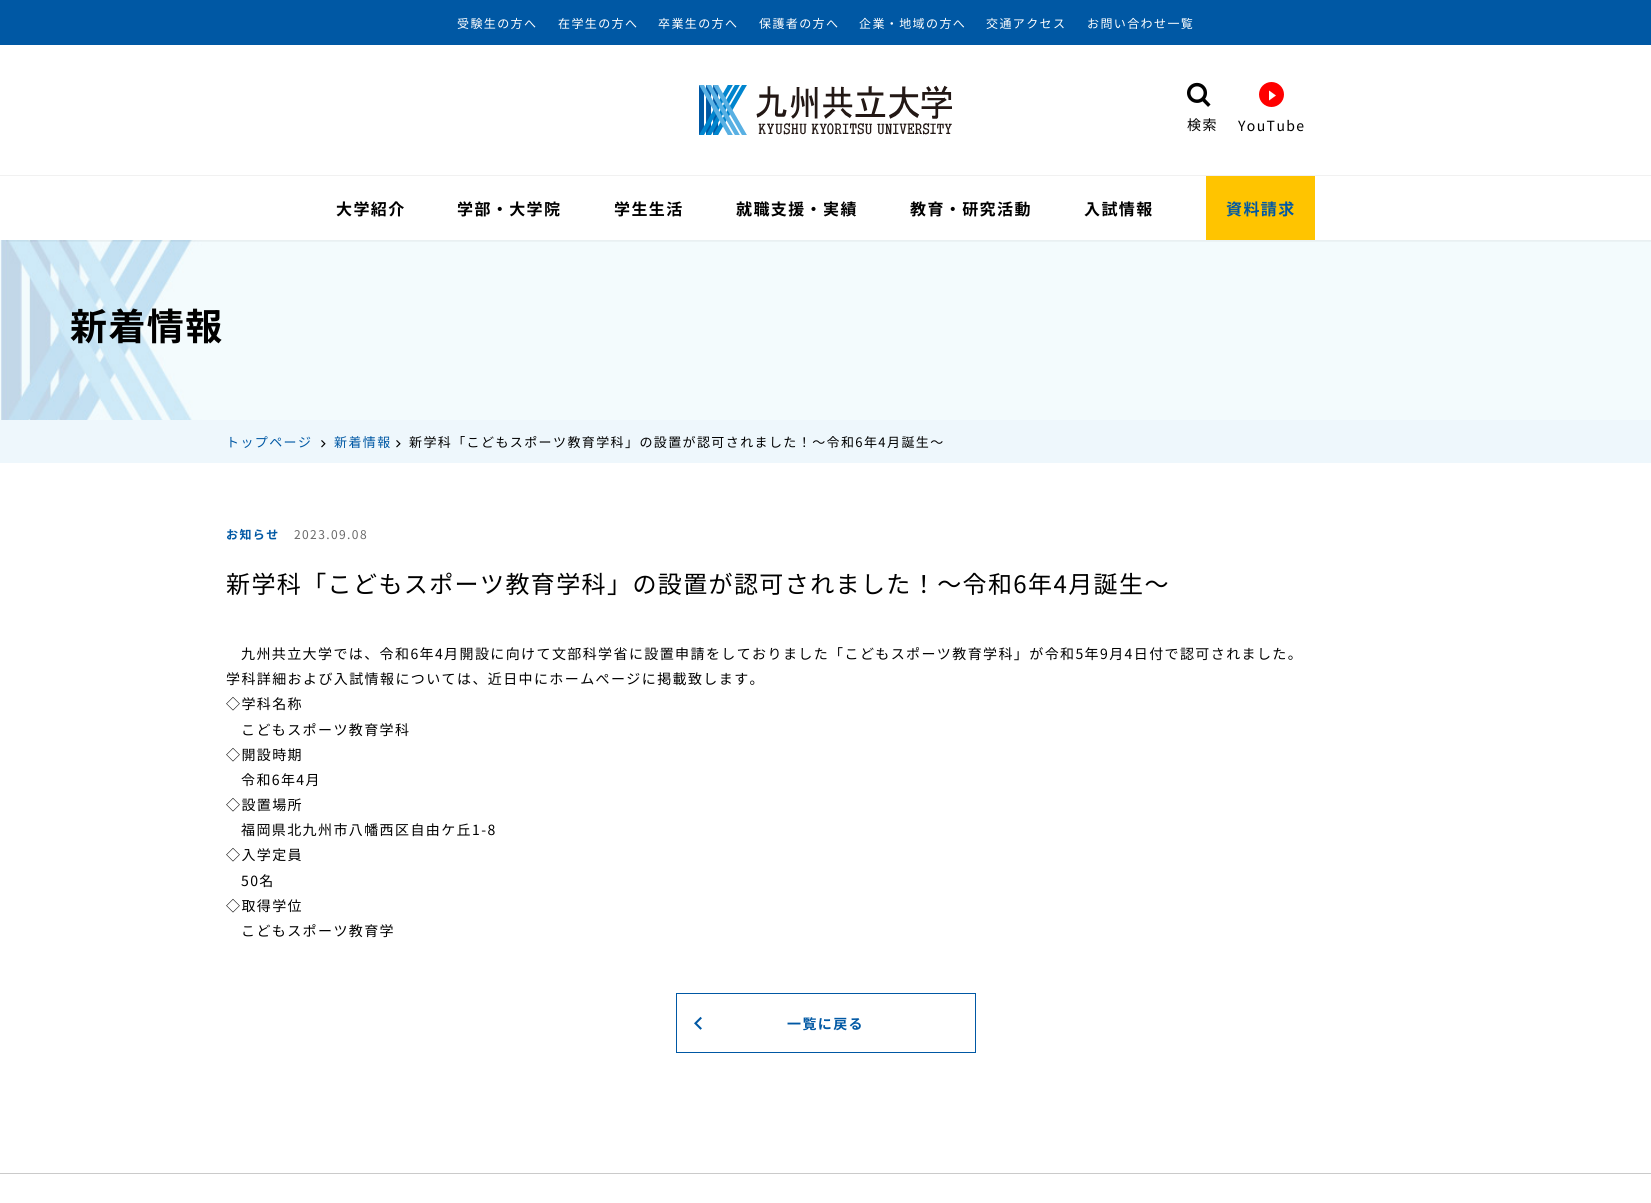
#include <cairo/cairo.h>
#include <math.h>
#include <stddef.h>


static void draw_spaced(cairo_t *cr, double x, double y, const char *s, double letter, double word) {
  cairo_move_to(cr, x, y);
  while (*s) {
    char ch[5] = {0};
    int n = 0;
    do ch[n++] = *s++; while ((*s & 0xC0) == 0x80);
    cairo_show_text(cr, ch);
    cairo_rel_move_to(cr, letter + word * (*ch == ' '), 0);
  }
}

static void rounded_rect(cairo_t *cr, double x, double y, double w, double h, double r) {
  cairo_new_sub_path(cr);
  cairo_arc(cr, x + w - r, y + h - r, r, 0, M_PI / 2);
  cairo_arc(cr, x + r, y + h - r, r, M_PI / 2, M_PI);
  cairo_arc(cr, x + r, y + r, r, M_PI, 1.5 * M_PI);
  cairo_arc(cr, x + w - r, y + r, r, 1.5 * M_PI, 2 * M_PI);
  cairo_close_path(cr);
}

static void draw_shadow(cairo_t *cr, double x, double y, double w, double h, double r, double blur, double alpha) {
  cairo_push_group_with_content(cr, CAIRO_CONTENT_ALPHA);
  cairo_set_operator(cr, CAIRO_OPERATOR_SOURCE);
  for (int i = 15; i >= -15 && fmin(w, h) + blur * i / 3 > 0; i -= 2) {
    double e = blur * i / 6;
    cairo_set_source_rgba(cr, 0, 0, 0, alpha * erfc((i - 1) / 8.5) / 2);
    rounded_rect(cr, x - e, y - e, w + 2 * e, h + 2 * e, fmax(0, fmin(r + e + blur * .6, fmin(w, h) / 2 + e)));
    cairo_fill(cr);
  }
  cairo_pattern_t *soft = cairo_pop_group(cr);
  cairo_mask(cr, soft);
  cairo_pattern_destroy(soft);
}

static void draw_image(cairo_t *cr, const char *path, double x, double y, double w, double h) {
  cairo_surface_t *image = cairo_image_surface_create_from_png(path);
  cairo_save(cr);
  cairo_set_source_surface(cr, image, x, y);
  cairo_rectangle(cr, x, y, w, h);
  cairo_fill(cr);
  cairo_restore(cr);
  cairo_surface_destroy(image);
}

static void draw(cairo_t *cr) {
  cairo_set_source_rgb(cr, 1, 1, 1);
  cairo_paint(cr);
  draw_image(cr, "images/3.png", 0, 240, 1651, 180);
  cairo_save(cr);
  cairo_rectangle(cr, 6, 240, 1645, 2);
  cairo_clip(cr);
  cairo_set_source_rgb(cr, 0, 0, 0);
  draw_shadow(cr, 7, 1, 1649, 238, 0, 3, 0.15);
  cairo_restore(cr);
  cairo_set_source_rgb(cr, 0, 88 / 255.0, 164 / 255.0);
  cairo_rectangle(cr, 0, 0, 1651, 45);
  cairo_fill(cr);
  cairo_set_source_rgb(cr, 241 / 255.0, 241 / 255.0, 241 / 255.0);
  cairo_rectangle(cr, 0, 175, 1651, 1);
  cairo_fill(cr);
  draw_image(cr, "images/1.png", 699, 85, 253, 50);
  draw_image(cr, "images/2.png", 1187, 82, 24, 25);
  cairo_set_source_rgb(cr, 1, 0, 0);
  cairo_arc(cr, 1271.5, 94.5, 12.5, 0, 2 * M_PI);
  cairo_fill(cr);
  cairo_set_source_rgb(cr, 1, 1, 1);
  cairo_new_path(cr);
  cairo_move_to(cr, 1269, 100.5);
  cairo_line_to(cr, 1269, 90.5);
  cairo_line_to(cr, 1276, 95.5);
  cairo_close_path(cr);
  cairo_fill(cr);
  cairo_set_source_rgb(cr, 1, 196 / 255.0, 0);
  cairo_rectangle(cr, 1206, 176, 109, 64);
  cairo_fill(cr);
  cairo_set_source_rgb(cr, 238 / 255.0, 247 / 255.0, 252 / 255.0);
  cairo_rectangle(cr, 0, 420, 1651, 43);
  cairo_fill(cr);
  draw_image(cr, "images/4.png", 321, 440, 5, 8);
  draw_image(cr, "images/5.png", 396, 440, 5, 8);
  cairo_rectangle(cr, 676.5, 993.5, 299, 59);
  cairo_set_source_rgb(cr, 0, 88 / 255.0, 164 / 255.0);
  cairo_set_line_width(cr, 1);
  cairo_stroke(cr);
  draw_image(cr, "images/6.png", 694, 1016, 8, 14);
  cairo_set_source_rgb(cr, 202 / 255.0, 202 / 255.0, 202 / 255.0);
  cairo_rectangle(cr, 0, 1173, 1651, 1);
  cairo_fill(cr);
  cairo_select_font_face(cr, "Noto Sans JP", CAIRO_FONT_SLANT_NORMAL, CAIRO_FONT_WEIGHT_NORMAL);
  cairo_set_font_size(cr, 12);
  cairo_set_source_rgb(cr, 1, 1, 1);
  draw_spaced(cr, 457, 28, "受験生の方へ", 1.4, 0);
  draw_spaced(cr, 558, 28, "在学生の方へ", 1.4, 0);
  draw_spaced(cr, 658, 28, "卒業生の方へ", 1.4, 0);
  draw_spaced(cr, 759, 28, "保護者の方へ", 1.4, 0);
  draw_spaced(cr, 859, 28, "企業・地域の方へ", 1.4, 0);
  draw_spaced(cr, 986, 28, "交通アクセス", 1.4, 0);
  draw_spaced(cr, 1087, 28, "お問い合わせ一覧", 1.4, 0);
  cairo_set_font_size(cr, 14);
  cairo_set_source_rgb(cr, 0, 0, 0);
  draw_spaced(cr, 1187, 130, "検索", 1.4, 0);
  draw_spaced(cr, 1238, 131, "YouTube", 1.4, 0);
  cairo_select_font_face(cr, "Noto Sans JP", CAIRO_FONT_SLANT_NORMAL, CAIRO_FONT_WEIGHT_BOLD);
  cairo_set_font_size(cr, 16);
  draw_spaced(cr, 336, 215, "大学紹介", 1.4, 0);
  draw_spaced(cr, 457, 215, "学部・大学院", 1.4, 0);
  draw_spaced(cr, 614, 215, "学生生活", 1.4, 0);
  draw_spaced(cr, 736, 215, "就職支援・実績", 1.4, 0);
  draw_spaced(cr, 910, 215, "教育・研究活動", 1.4, 0);
  draw_spaced(cr, 1084, 215, "入試情報", 1.4, 0);
  cairo_set_source_rgb(cr, 0, 88 / 255.0, 164 / 255.0);
  draw_spaced(cr, 1226, 215, "資料請求", 1.4, 0);
  cairo_set_font_size(cr, 37);
  cairo_set_source_rgb(cr, 0, 0, 0);
  draw_spaced(cr, 70, 340, "新着情報", 1.4, 0);
  cairo_select_font_face(cr, "Noto Sans JP", CAIRO_FONT_SLANT_NORMAL, CAIRO_FONT_WEIGHT_NORMAL);
  cairo_set_font_size(cr, 13);
  cairo_set_source_rgb(cr, 0, 88 / 255.0, 164 / 255.0);
  draw_spaced(cr, 226, 447, "トップページ", 1.4, 0);
  draw_spaced(cr, 334, 447, "新着情報", 1.4, 0);
  cairo_set_source_rgb(cr, 0, 0, 0);
  draw_spaced(cr, 409, 447, "新学科「こどもスポーツ教育学科」の設置が認可されました！～令和6年4月誕生～", 1.4, 0);
  cairo_select_font_face(cr, "Noto Sans JP", CAIRO_FONT_SLANT_NORMAL, CAIRO_FONT_WEIGHT_BOLD);
  cairo_set_font_size(cr, 12);
  cairo_set_source_rgb(cr, 0, 88 / 255.0, 164 / 255.0);
  draw_spaced(cr, 226, 539, "お知らせ", 1.4, 0);
  cairo_select_font_face(cr, "Noto Sans JP", CAIRO_FONT_SLANT_NORMAL, CAIRO_FONT_WEIGHT_NORMAL);
  cairo_set_source_rgb(cr, 106 / 255.0, 106 / 255.0, 106 / 255.0);
  draw_spaced(cr, 294, 539, "2023.09.08", 1.4, 0);
  cairo_set_font_size(cr, 24);
  cairo_set_source_rgb(cr, 0, 0, 0);
  draw_spaced(cr, 226, 593, "新学科「こどもスポーツ教育学科」の設置が認可されました！～令和6年4月誕生～", 1.4, 0);
  cairo_set_font_size(cr, 14);
  draw_spaced(cr, 241, 659, "九州共立大学では、令和6年4月開設に向けて文部科学省に設置申請をしておりました「こどもスポーツ教育学科」が令和5年9月4日付で認可されました。", 1.4, 0);
  draw_spaced(cr, 226, 684, "学科詳細および入試情報については、近日中にホームぺージに掲載致します。", 1.4, 0);
  draw_spaced(cr, 226, 709, "◇学科名称", 1.4, 0);
  draw_spaced(cr, 241, 735, "こどもスポーツ教育学科", 1.4, 0);
  draw_spaced(cr, 226, 760, "◇開設時期", 1.4, 0);
  draw_spaced(cr, 241, 785, "令和6年4月", 1.4, 0);
  draw_spaced(cr, 226, 810, "◇設置場所", 1.4, 0);
  draw_spaced(cr, 241, 835, "福岡県北九州市八幡西区自由ケ丘1-8", 1.4, 0);
  draw_spaced(cr, 226, 860, "◇入学定員", 1.4, 0);
  draw_spaced(cr, 241, 886, "50名", 1.4, 0);
  draw_spaced(cr, 226, 911, "◇取得学位", 1.4, 0);
  draw_spaced(cr, 241, 936, "こどもスポーツ教育学", 1.4, 0);
  cairo_select_font_face(cr, "Noto Sans JP", CAIRO_FONT_SLANT_NORMAL, CAIRO_FONT_WEIGHT_BOLD);
  cairo_set_source_rgb(cr, 0, 88 / 255.0, 164 / 255.0);
  draw_spaced(cr, 787, 1029, "一覧に戻る", 1.4, 0);
}

int main(void) {
  cairo_surface_t *surface = cairo_image_surface_create(CAIRO_FORMAT_RGB24, 1651, 1203);
  cairo_t *cr = cairo_create(surface);
  cairo_font_options_t *options = cairo_font_options_create();
  cairo_font_options_set_hint_metrics(options, CAIRO_HINT_METRICS_OFF);
  cairo_font_options_set_hint_style(options, CAIRO_HINT_STYLE_NONE);
  cairo_set_font_options(cr, options);
  cairo_set_miter_limit(cr, 4);
  draw(cr);
  cairo_surface_write_to_png(surface, "out.png");
  cairo_font_options_destroy(options);
  cairo_destroy(cr);
  cairo_surface_destroy(surface);
  return 0;
}
